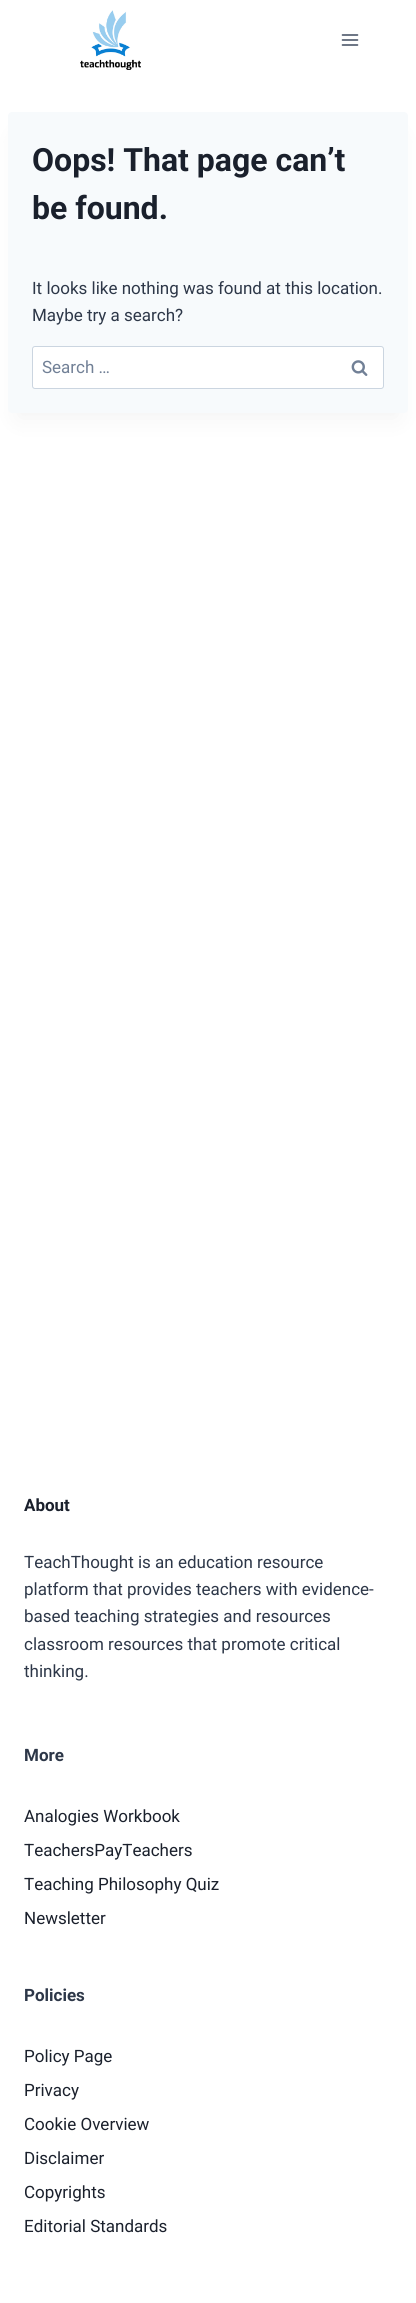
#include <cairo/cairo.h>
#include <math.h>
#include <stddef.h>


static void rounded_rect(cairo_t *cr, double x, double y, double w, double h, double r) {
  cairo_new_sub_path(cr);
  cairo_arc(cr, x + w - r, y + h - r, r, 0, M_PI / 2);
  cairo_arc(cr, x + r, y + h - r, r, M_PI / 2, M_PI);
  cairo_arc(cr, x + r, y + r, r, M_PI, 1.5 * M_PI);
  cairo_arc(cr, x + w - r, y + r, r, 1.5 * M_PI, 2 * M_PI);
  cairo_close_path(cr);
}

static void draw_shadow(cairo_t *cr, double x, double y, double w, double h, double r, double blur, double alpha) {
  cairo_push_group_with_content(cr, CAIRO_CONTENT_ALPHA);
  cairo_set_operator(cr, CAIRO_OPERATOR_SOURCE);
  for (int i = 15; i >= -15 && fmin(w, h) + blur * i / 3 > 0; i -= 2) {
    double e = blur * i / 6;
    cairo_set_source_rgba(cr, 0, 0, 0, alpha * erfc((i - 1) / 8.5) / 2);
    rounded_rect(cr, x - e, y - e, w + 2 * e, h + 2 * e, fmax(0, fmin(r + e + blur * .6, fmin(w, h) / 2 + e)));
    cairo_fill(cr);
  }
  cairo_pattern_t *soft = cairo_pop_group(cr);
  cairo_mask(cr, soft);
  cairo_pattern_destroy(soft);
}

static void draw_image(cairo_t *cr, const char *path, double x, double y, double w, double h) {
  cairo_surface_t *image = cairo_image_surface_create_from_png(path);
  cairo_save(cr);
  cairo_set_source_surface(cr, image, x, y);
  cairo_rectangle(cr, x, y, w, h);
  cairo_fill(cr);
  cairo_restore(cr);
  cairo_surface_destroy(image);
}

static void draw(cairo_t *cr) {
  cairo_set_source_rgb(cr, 1, 1, 1);
  cairo_paint(cr);
  draw_image(cr, "images/1.png", 80, 10, 61, 60);
  draw_image(cr, "images/2.png", 341, 34, 18, 12);
  cairo_set_source_rgb(cr, 0, 0, 0);
  draw_shadow(cr, 18, 137, 380, 281, 0, 12.5, 0.05);
  cairo_set_source_rgb(cr, 247 / 255.0, 250 / 255.0, 252 / 255.0);
  rounded_rect(cr, 8, 112, 400, 301, 4);
  cairo_fill(cr);
  cairo_set_source_rgb(cr, 1, 1, 1);
  rounded_rect(cr, 32.5, 346.5, 351, 42, 2.5);
  cairo_fill_preserve(cr);
  cairo_set_source_rgb(cr, 203 / 255.0, 213 / 255.0, 224 / 255.0);
  cairo_set_line_width(cr, 1);
  cairo_stroke(cr);
  draw_image(cr, "images/3.png", 351, 360, 17, 16);
  cairo_select_font_face(cr, "Roboto", CAIRO_FONT_SLANT_NORMAL, CAIRO_FONT_WEIGHT_BOLD);
  cairo_set_font_size(cr, 32);
  cairo_set_source_rgb(cr, 26 / 255.0, 32 / 255.0, 44 / 255.0);
  cairo_move_to(cr, 32, 171);
  cairo_show_text(cr, "Oops! That page can’t");
  cairo_move_to(cr, 32, 219);
  cairo_show_text(cr, "be found.");
  cairo_select_font_face(cr, "Roboto", CAIRO_FONT_SLANT_NORMAL, CAIRO_FONT_WEIGHT_NORMAL);
  cairo_set_font_size(cr, 17);
  cairo_set_source_rgb(cr, 45 / 255.0, 55 / 255.0, 72 / 255.0);
  cairo_move_to(cr, 32, 294);
  cairo_show_text(cr, "It looks like nothing was found at this location.");
  cairo_move_to(cr, 32, 321);
  cairo_show_text(cr, "Maybe try a search?");
  cairo_set_source_rgb(cr, 113 / 255.0, 128 / 255.0, 150 / 255.0);
  cairo_move_to(cr, 42, 373);
  cairo_show_text(cr, "Search …");
  cairo_select_font_face(cr, "Roboto", CAIRO_FONT_SLANT_NORMAL, CAIRO_FONT_WEIGHT_BOLD);
  cairo_set_source_rgb(cr, 26 / 255.0, 32 / 255.0, 44 / 255.0);
  cairo_move_to(cr, 24, 1511);
  cairo_show_text(cr, "About");
  cairo_select_font_face(cr, "Roboto", CAIRO_FONT_SLANT_NORMAL, CAIRO_FONT_WEIGHT_NORMAL);
  cairo_set_source_rgb(cr, 45 / 255.0, 55 / 255.0, 72 / 255.0);
  cairo_move_to(cr, 24, 1568);
  cairo_show_text(cr, "TeachThought is an education resource");
  cairo_move_to(cr, 24, 1595);
  cairo_show_text(cr, "platform that provides teachers with evidence-");
  cairo_move_to(cr, 24, 1622);
  cairo_show_text(cr, "based teaching strategies and resources");
  cairo_move_to(cr, 24, 1650);
  cairo_show_text(cr, "classroom resources that promote critical");
  cairo_move_to(cr, 24, 1677);
  cairo_show_text(cr, "thinking.");
  cairo_select_font_face(cr, "Roboto", CAIRO_FONT_SLANT_NORMAL, CAIRO_FONT_WEIGHT_BOLD);
  cairo_move_to(cr, 24, 1761);
  cairo_show_text(cr, "More");
  cairo_select_font_face(cr, "Roboto", CAIRO_FONT_SLANT_NORMAL, CAIRO_FONT_WEIGHT_NORMAL);
  cairo_set_source_rgb(cr, 26 / 255.0, 32 / 255.0, 44 / 255.0);
  cairo_move_to(cr, 24, 1822);
  cairo_show_text(cr, "Analogies Workbook");
  cairo_move_to(cr, 24, 1856);
  cairo_show_text(cr, "TeachersPayTeachers");
  cairo_move_to(cr, 24, 1890);
  cairo_show_text(cr, "Teaching Philosophy Quiz");
  cairo_move_to(cr, 24, 1924);
  cairo_show_text(cr, "Newsletter");
  cairo_select_font_face(cr, "Roboto", CAIRO_FONT_SLANT_NORMAL, CAIRO_FONT_WEIGHT_BOLD);
  cairo_set_source_rgb(cr, 45 / 255.0, 55 / 255.0, 72 / 255.0);
  cairo_move_to(cr, 24, 2001);
  cairo_show_text(cr, "Policies");
  cairo_select_font_face(cr, "Roboto", CAIRO_FONT_SLANT_NORMAL, CAIRO_FONT_WEIGHT_NORMAL);
  cairo_set_source_rgb(cr, 26 / 255.0, 32 / 255.0, 44 / 255.0);
  cairo_move_to(cr, 24, 2062);
  cairo_show_text(cr, "Policy Page");
  cairo_move_to(cr, 24, 2096);
  cairo_show_text(cr, "Privacy");
  cairo_move_to(cr, 24, 2130);
  cairo_show_text(cr, "Cookie Overview");
  cairo_move_to(cr, 24, 2164);
  cairo_show_text(cr, "Disclaimer");
  cairo_move_to(cr, 24, 2198);
  cairo_show_text(cr, "Copyrights");
  cairo_move_to(cr, 24, 2232);
  cairo_show_text(cr, "Editorial Standards");
}

int main(void) {
  cairo_surface_t *surface = cairo_image_surface_create(CAIRO_FORMAT_RGB24, 416, 2303);
  cairo_t *cr = cairo_create(surface);
  cairo_font_options_t *options = cairo_font_options_create();
  cairo_font_options_set_hint_metrics(options, CAIRO_HINT_METRICS_OFF);
  cairo_font_options_set_hint_style(options, CAIRO_HINT_STYLE_NONE);
  cairo_set_font_options(cr, options);
  cairo_set_miter_limit(cr, 4);
  draw(cr);
  cairo_surface_write_to_png(surface, "out.png");
  cairo_font_options_destroy(options);
  cairo_destroy(cr);
  cairo_surface_destroy(surface);
  return 0;
}
